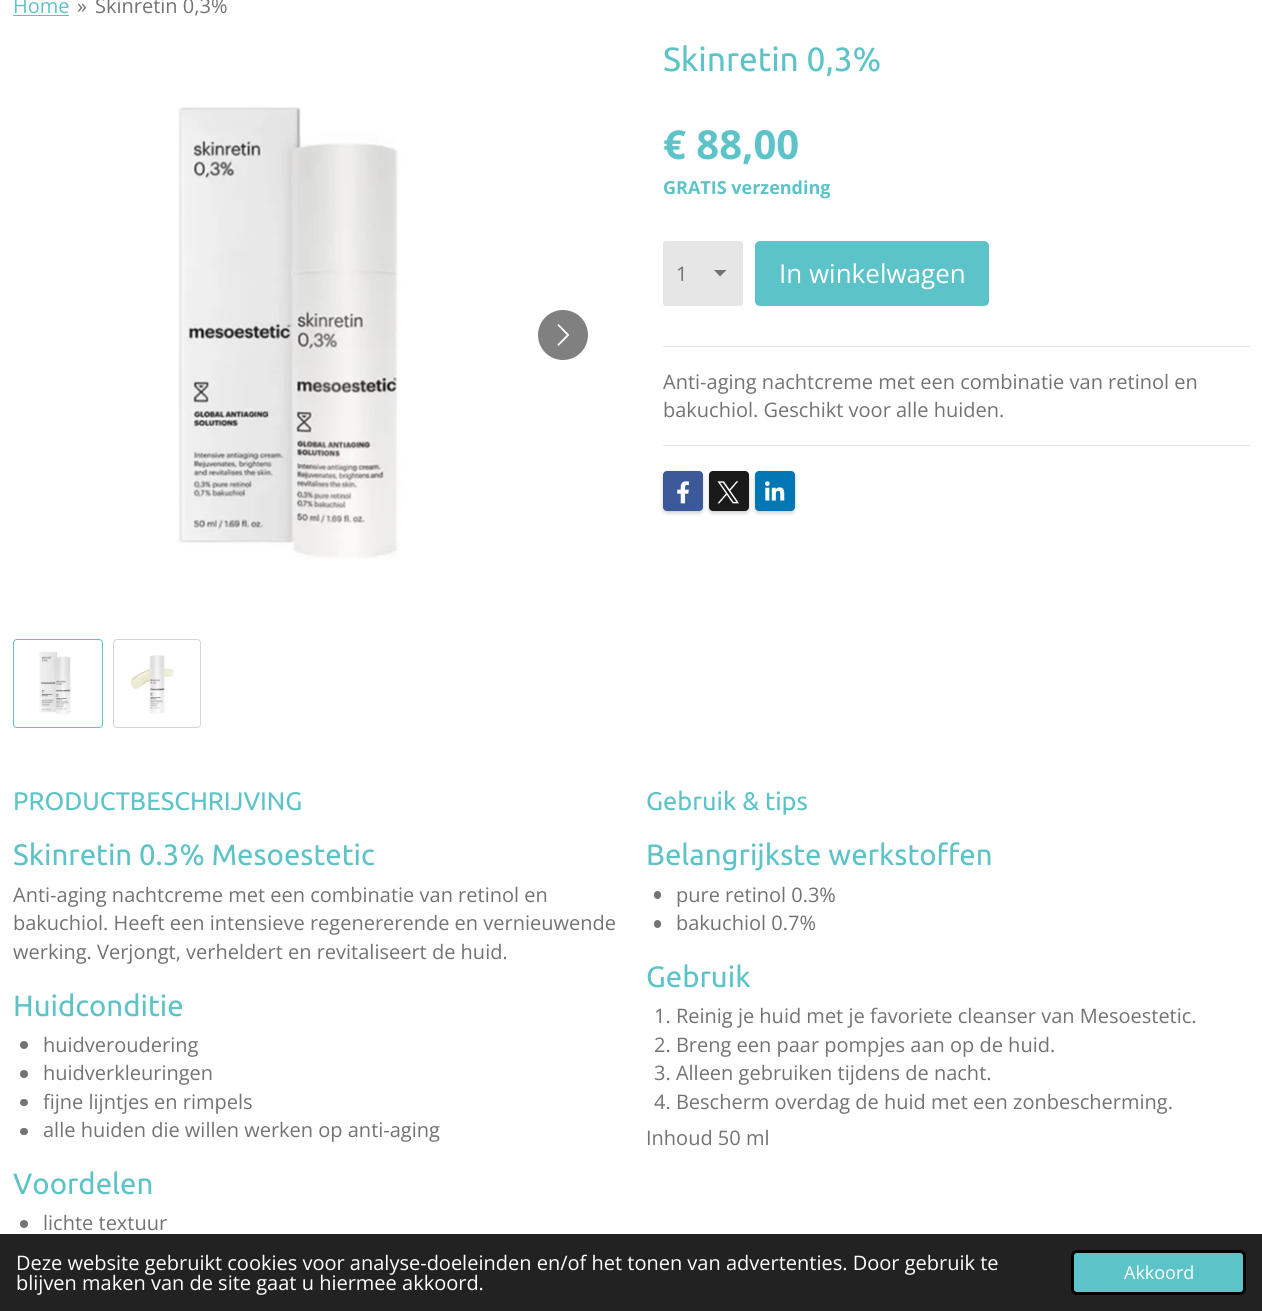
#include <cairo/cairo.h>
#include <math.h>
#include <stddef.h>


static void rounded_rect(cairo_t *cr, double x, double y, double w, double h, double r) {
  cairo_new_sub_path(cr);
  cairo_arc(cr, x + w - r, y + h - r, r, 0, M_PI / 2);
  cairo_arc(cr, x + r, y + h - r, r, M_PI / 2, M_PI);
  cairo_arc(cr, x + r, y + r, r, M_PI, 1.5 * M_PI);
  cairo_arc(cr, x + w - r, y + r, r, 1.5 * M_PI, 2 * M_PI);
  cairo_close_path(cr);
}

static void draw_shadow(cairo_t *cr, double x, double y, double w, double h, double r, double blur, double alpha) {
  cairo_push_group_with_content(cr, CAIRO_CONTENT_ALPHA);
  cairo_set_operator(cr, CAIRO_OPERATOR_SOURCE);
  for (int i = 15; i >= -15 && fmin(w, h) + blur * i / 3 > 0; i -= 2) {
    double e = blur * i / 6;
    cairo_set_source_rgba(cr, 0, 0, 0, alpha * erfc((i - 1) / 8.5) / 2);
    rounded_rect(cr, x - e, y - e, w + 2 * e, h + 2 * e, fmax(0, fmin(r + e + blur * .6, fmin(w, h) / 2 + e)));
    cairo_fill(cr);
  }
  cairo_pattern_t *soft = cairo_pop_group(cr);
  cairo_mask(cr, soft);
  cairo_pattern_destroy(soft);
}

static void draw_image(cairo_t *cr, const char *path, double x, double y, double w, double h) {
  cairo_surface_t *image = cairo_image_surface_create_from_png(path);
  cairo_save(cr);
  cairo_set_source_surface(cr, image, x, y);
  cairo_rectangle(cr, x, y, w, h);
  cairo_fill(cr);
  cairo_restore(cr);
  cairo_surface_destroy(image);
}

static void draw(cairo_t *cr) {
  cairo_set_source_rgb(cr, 1, 1, 1);
  cairo_paint(cr);
  cairo_set_source_rgb(cr, 92 / 255.0, 195 / 255.0, 200 / 255.0);
  cairo_rectangle(cr, 13, 15, 56, 1);
  cairo_fill(cr);
  draw_image(cr, "images/1.png", 178, 107, 223, 452);
  cairo_set_source_rgb(cr, 128 / 255.0, 128 / 255.0, 128 / 255.0);
  cairo_arc(cr, 563, 335, 25, 0, 2 * M_PI);
  cairo_fill(cr);
  draw_image(cr, "images/2.png", 557, 324, 12, 22);
  rounded_rect(cr, 13.5, 639.5, 89, 88, 3.5);
  cairo_set_source_rgb(cr, 92 / 255.0, 195 / 255.0, 200 / 255.0);
  cairo_set_line_width(cr, 1);
  cairo_stroke(cr);
  draw_image(cr, "images/3.png", 39, 651, 32, 64);
  rounded_rect(cr, 113.5, 639.5, 87, 88, 3.5);
  cairo_set_source_rgb(cr, 213 / 255.0, 213 / 255.0, 213 / 255.0);
  cairo_stroke(cr);
  draw_image(cr, "images/4.png", 130, 655, 45, 59);
  cairo_set_source_rgb(cr, 230 / 255.0, 230 / 255.0, 230 / 255.0);
  rounded_rect(cr, 663, 241, 80, 65, 2.5);
  cairo_fill(cr);
  cairo_set_source_rgb(cr, 115 / 255.0, 115 / 255.0, 115 / 255.0);
  cairo_new_path(cr);
  cairo_move_to(cr, 720, 276.5);
  cairo_line_to(cr, 714, 270);
  cairo_line_to(cr, 726.5, 270);
  cairo_close_path(cr);
  cairo_fill(cr);
  cairo_set_source_rgb(cr, 92 / 255.0, 195 / 255.0, 200 / 255.0);
  rounded_rect(cr, 755, 241, 234, 65, 5);
  cairo_fill(cr);
  cairo_set_source_rgb(cr, 227 / 255.0, 227 / 255.0, 227 / 255.0);
  cairo_rectangle(cr, 663, 346, 587, 1);
  cairo_fill(cr);
  cairo_rectangle(cr, 663, 445, 587, 1);
  cairo_fill(cr);
  cairo_set_source_rgb(cr, 0, 0, 0);
  draw_shadow(cr, 663, 473, 40, 40, 4, 2, 0.2);
  cairo_set_source_rgb(cr, 59 / 255.0, 89 / 255.0, 152 / 255.0);
  rounded_rect(cr, 663, 471, 40, 40, 4);
  cairo_fill(cr);
  draw_image(cr, "images/5.png", 677, 481, 12, 23);
  cairo_set_source_rgb(cr, 0, 0, 0);
  draw_shadow(cr, 709, 473, 40, 40, 4, 2, 0.2);
  cairo_set_source_rgb(cr, 26 / 255.0, 26 / 255.0, 26 / 255.0);
  rounded_rect(cr, 709, 471, 40, 40, 4);
  cairo_fill(cr);
  draw_image(cr, "images/6.png", 717, 481, 22, 23);
  cairo_set_source_rgb(cr, 0, 0, 0);
  draw_shadow(cr, 755, 473, 40, 40, 4, 2, 0.2);
  cairo_set_source_rgb(cr, 0, 119 / 255.0, 181 / 255.0);
  rounded_rect(cr, 755, 471, 40, 40, 4);
  cairo_fill(cr);
  draw_image(cr, "images/7.png", 765, 481, 20, 20);
  cairo_set_source_rgb(cr, 115 / 255.0, 115 / 255.0, 115 / 255.0);
  cairo_arc(cr, 24, 1045, 4, 0, 2 * M_PI);
  cairo_fill(cr);
  cairo_arc(cr, 24, 1074, 4, 0, 2 * M_PI);
  cairo_fill(cr);
  rounded_rect(cr, 20, 1099, 8, 7, 3.5);
  cairo_fill(cr);
  rounded_rect(cr, 20, 1128, 8, 7, 3.5);
  cairo_fill(cr);
  cairo_arc(cr, 24, 1224, 4, 0, 2 * M_PI);
  cairo_fill(cr);
  rounded_rect(cr, 654, 891, 7, 8, 3.5);
  cairo_fill(cr);
  rounded_rect(cr, 654, 920, 7, 8, 3.5);
  cairo_fill(cr);
  cairo_set_source_rgb(cr, 34 / 255.0, 34 / 255.0, 34 / 255.0);
  cairo_rectangle(cr, 0, 1234, 1262, 77);
  cairo_fill(cr);
  cairo_set_source_rgb(cr, 92 / 255.0, 195 / 255.0, 200 / 255.0);
  rounded_rect(cr, 1072.5, 1251.5, 172, 42, 4.5);
  cairo_fill_preserve(cr);
  cairo_set_source_rgb(cr, 0, 0, 0);
  cairo_set_line_width(cr, 3);
  cairo_stroke(cr);
  cairo_select_font_face(cr, "Open Sans", CAIRO_FONT_SLANT_NORMAL, CAIRO_FONT_WEIGHT_NORMAL);
  cairo_set_font_size(cr, 20);
  cairo_set_source_rgb(cr, 92 / 255.0, 195 / 255.0, 200 / 255.0);
  cairo_move_to(cr, 13, 13);
  cairo_show_text(cr, "Home");
  cairo_set_source_rgb(cr, 115 / 255.0, 115 / 255.0, 115 / 255.0);
  cairo_move_to(cr, 77, 13);
  cairo_show_text(cr, "»");
  cairo_move_to(cr, 95, 13);
  cairo_show_text(cr, "Skinretin 0,3%");
  cairo_select_font_face(cr, "Ubuntu", CAIRO_FONT_SLANT_NORMAL, CAIRO_FONT_WEIGHT_NORMAL);
  cairo_set_font_size(cr, 33.5);
  cairo_set_source_rgb(cr, 92 / 255.0, 195 / 255.0, 200 / 255.0);
  cairo_move_to(cr, 663, 71);
  cairo_show_text(cr, "Skinretin 0,3%");
  cairo_select_font_face(cr, "Open Sans", CAIRO_FONT_SLANT_NORMAL, CAIRO_FONT_WEIGHT_BOLD);
  cairo_set_font_size(cr, 40);
  cairo_move_to(cr, 663, 159);
  cairo_show_text(cr, "€ 88,00");
  cairo_set_font_size(cr, 18);
  cairo_move_to(cr, 663, 194);
  cairo_show_text(cr, "GRATIS verzending");
  cairo_select_font_face(cr, "Open Sans", CAIRO_FONT_SLANT_NORMAL, CAIRO_FONT_WEIGHT_NORMAL);
  cairo_set_font_size(cr, 20);
  cairo_set_source_rgb(cr, 115 / 255.0, 115 / 255.0, 115 / 255.0);
  cairo_move_to(cr, 676, 281);
  cairo_show_text(cr, "1");
  cairo_set_font_size(cr, 26);
  cairo_set_source_rgb(cr, 1, 1, 1);
  cairo_move_to(cr, 779, 283);
  cairo_show_text(cr, "In winkelwagen");
  cairo_set_font_size(cr, 20);
  cairo_set_source_rgb(cr, 115 / 255.0, 115 / 255.0, 115 / 255.0);
  cairo_move_to(cr, 663, 389);
  cairo_show_text(cr, "Anti-aging nachtcreme met een combinatie van retinol en");
  cairo_move_to(cr, 663, 417);
  cairo_show_text(cr, "bakuchiol. Geschikt voor alle huiden.");
  cairo_select_font_face(cr, "Ubuntu", CAIRO_FONT_SLANT_NORMAL, CAIRO_FONT_WEIGHT_NORMAL);
  cairo_set_font_size(cr, 25.4);
  cairo_set_source_rgb(cr, 92 / 255.0, 195 / 255.0, 200 / 255.0);
  cairo_move_to(cr, 13, 810);
  cairo_show_text(cr, "PRODUCTBESCHRIJVING");
  cairo_set_font_size(cr, 29.4);
  cairo_move_to(cr, 13, 865);
  cairo_show_text(cr, "Skinretin 0.3% Mesoestetic");
  cairo_select_font_face(cr, "Open Sans", CAIRO_FONT_SLANT_NORMAL, CAIRO_FONT_WEIGHT_NORMAL);
  cairo_set_font_size(cr, 20);
  cairo_set_source_rgb(cr, 115 / 255.0, 115 / 255.0, 115 / 255.0);
  cairo_move_to(cr, 13, 902);
  cairo_show_text(cr, "Anti-aging nachtcreme met een combinatie van retinol en");
  cairo_move_to(cr, 13, 930);
  cairo_show_text(cr, "bakuchiol. Heeft een intensieve regenererende en vernieuwende");
  cairo_move_to(cr, 13, 959);
  cairo_show_text(cr, "werking. Verjongt, verheldert en revitaliseert de huid.");
  cairo_select_font_face(cr, "Ubuntu", CAIRO_FONT_SLANT_NORMAL, CAIRO_FONT_WEIGHT_NORMAL);
  cairo_set_font_size(cr, 29.4);
  cairo_set_source_rgb(cr, 92 / 255.0, 195 / 255.0, 200 / 255.0);
  cairo_move_to(cr, 13, 1016);
  cairo_show_text(cr, "Huidconditie");
  cairo_select_font_face(cr, "Open Sans", CAIRO_FONT_SLANT_NORMAL, CAIRO_FONT_WEIGHT_NORMAL);
  cairo_set_font_size(cr, 20);
  cairo_set_source_rgb(cr, 115 / 255.0, 115 / 255.0, 115 / 255.0);
  cairo_move_to(cr, 43, 1052);
  cairo_show_text(cr, "huidveroudering");
  cairo_move_to(cr, 43, 1080);
  cairo_show_text(cr, "huidverkleuringen");
  cairo_move_to(cr, 43, 1109);
  cairo_show_text(cr, "fijne lijntjes en rimpels");
  cairo_move_to(cr, 43, 1137);
  cairo_show_text(cr, "alle huiden die willen werken op anti-aging");
  cairo_select_font_face(cr, "Ubuntu", CAIRO_FONT_SLANT_NORMAL, CAIRO_FONT_WEIGHT_NORMAL);
  cairo_set_font_size(cr, 29.4);
  cairo_set_source_rgb(cr, 92 / 255.0, 195 / 255.0, 200 / 255.0);
  cairo_move_to(cr, 13, 1194);
  cairo_show_text(cr, "Voordelen");
  cairo_select_font_face(cr, "Open Sans", CAIRO_FONT_SLANT_NORMAL, CAIRO_FONT_WEIGHT_NORMAL);
  cairo_set_font_size(cr, 20);
  cairo_set_source_rgb(cr, 115 / 255.0, 115 / 255.0, 115 / 255.0);
  cairo_move_to(cr, 43, 1230);
  cairo_show_text(cr, "lichte textuur");
  cairo_select_font_face(cr, "Ubuntu", CAIRO_FONT_SLANT_NORMAL, CAIRO_FONT_WEIGHT_NORMAL);
  cairo_set_font_size(cr, 25.4);
  cairo_set_source_rgb(cr, 92 / 255.0, 195 / 255.0, 200 / 255.0);
  cairo_move_to(cr, 646, 810);
  cairo_show_text(cr, "Gebruik & tips");
  cairo_set_font_size(cr, 29.4);
  cairo_move_to(cr, 646, 865);
  cairo_show_text(cr, "Belangrijkste werkstoffen");
  cairo_select_font_face(cr, "Open Sans", CAIRO_FONT_SLANT_NORMAL, CAIRO_FONT_WEIGHT_NORMAL);
  cairo_set_font_size(cr, 20);
  cairo_set_source_rgb(cr, 115 / 255.0, 115 / 255.0, 115 / 255.0);
  cairo_move_to(cr, 676, 902);
  cairo_show_text(cr, "pure retinol 0.3%");
  cairo_move_to(cr, 676, 930);
  cairo_show_text(cr, "bakuchiol 0.7%");
  cairo_select_font_face(cr, "Ubuntu", CAIRO_FONT_SLANT_NORMAL, CAIRO_FONT_WEIGHT_NORMAL);
  cairo_set_font_size(cr, 29.4);
  cairo_set_source_rgb(cr, 92 / 255.0, 195 / 255.0, 200 / 255.0);
  cairo_move_to(cr, 646, 987);
  cairo_show_text(cr, "Gebruik");
  cairo_select_font_face(cr, "Open Sans", CAIRO_FONT_SLANT_NORMAL, CAIRO_FONT_WEIGHT_NORMAL);
  cairo_set_font_size(cr, 20);
  cairo_set_source_rgb(cr, 115 / 255.0, 115 / 255.0, 115 / 255.0);
  cairo_move_to(cr, 654, 1023);
  cairo_show_text(cr, "1. Reinig je huid met je favoriete cleanser van Mesoestetic.");
  cairo_move_to(cr, 654, 1052);
  cairo_show_text(cr, "2. Breng een paar pompjes aan op de huid.");
  cairo_move_to(cr, 654, 1080);
  cairo_show_text(cr, "3. Alleen gebruiken tijdens de nacht.");
  cairo_move_to(cr, 654, 1109);
  cairo_show_text(cr, "4. Bescherm overdag de huid met een zonbescherming.");
  cairo_move_to(cr, 646, 1145);
  cairo_show_text(cr, "Inhoud 50 ml");
  cairo_set_source_rgb(cr, 1, 1, 1);
  cairo_move_to(cr, 16, 1270);
  cairo_show_text(cr, "Deze website gebruikt cookies voor analyse-doeleinden en/of het tonen van advertenties. Door gebruik te");
  cairo_move_to(cr, 16, 1290);
  cairo_show_text(cr, "blijven maken van de site gaat u hiermee akkoord.");
  cairo_set_font_size(cr, 18);
  cairo_move_to(cr, 1124, 1279);
  cairo_show_text(cr, "Akkoord");
}

int main(void) {
  cairo_surface_t *surface = cairo_image_surface_create(CAIRO_FORMAT_RGB24, 1262, 1311);
  cairo_t *cr = cairo_create(surface);
  cairo_font_options_t *options = cairo_font_options_create();
  cairo_font_options_set_hint_metrics(options, CAIRO_HINT_METRICS_OFF);
  cairo_font_options_set_hint_style(options, CAIRO_HINT_STYLE_NONE);
  cairo_set_font_options(cr, options);
  cairo_set_miter_limit(cr, 4);
  draw(cr);
  cairo_surface_write_to_png(surface, "out.png");
  cairo_font_options_destroy(options);
  cairo_destroy(cr);
  cairo_surface_destroy(surface);
  return 0;
}
